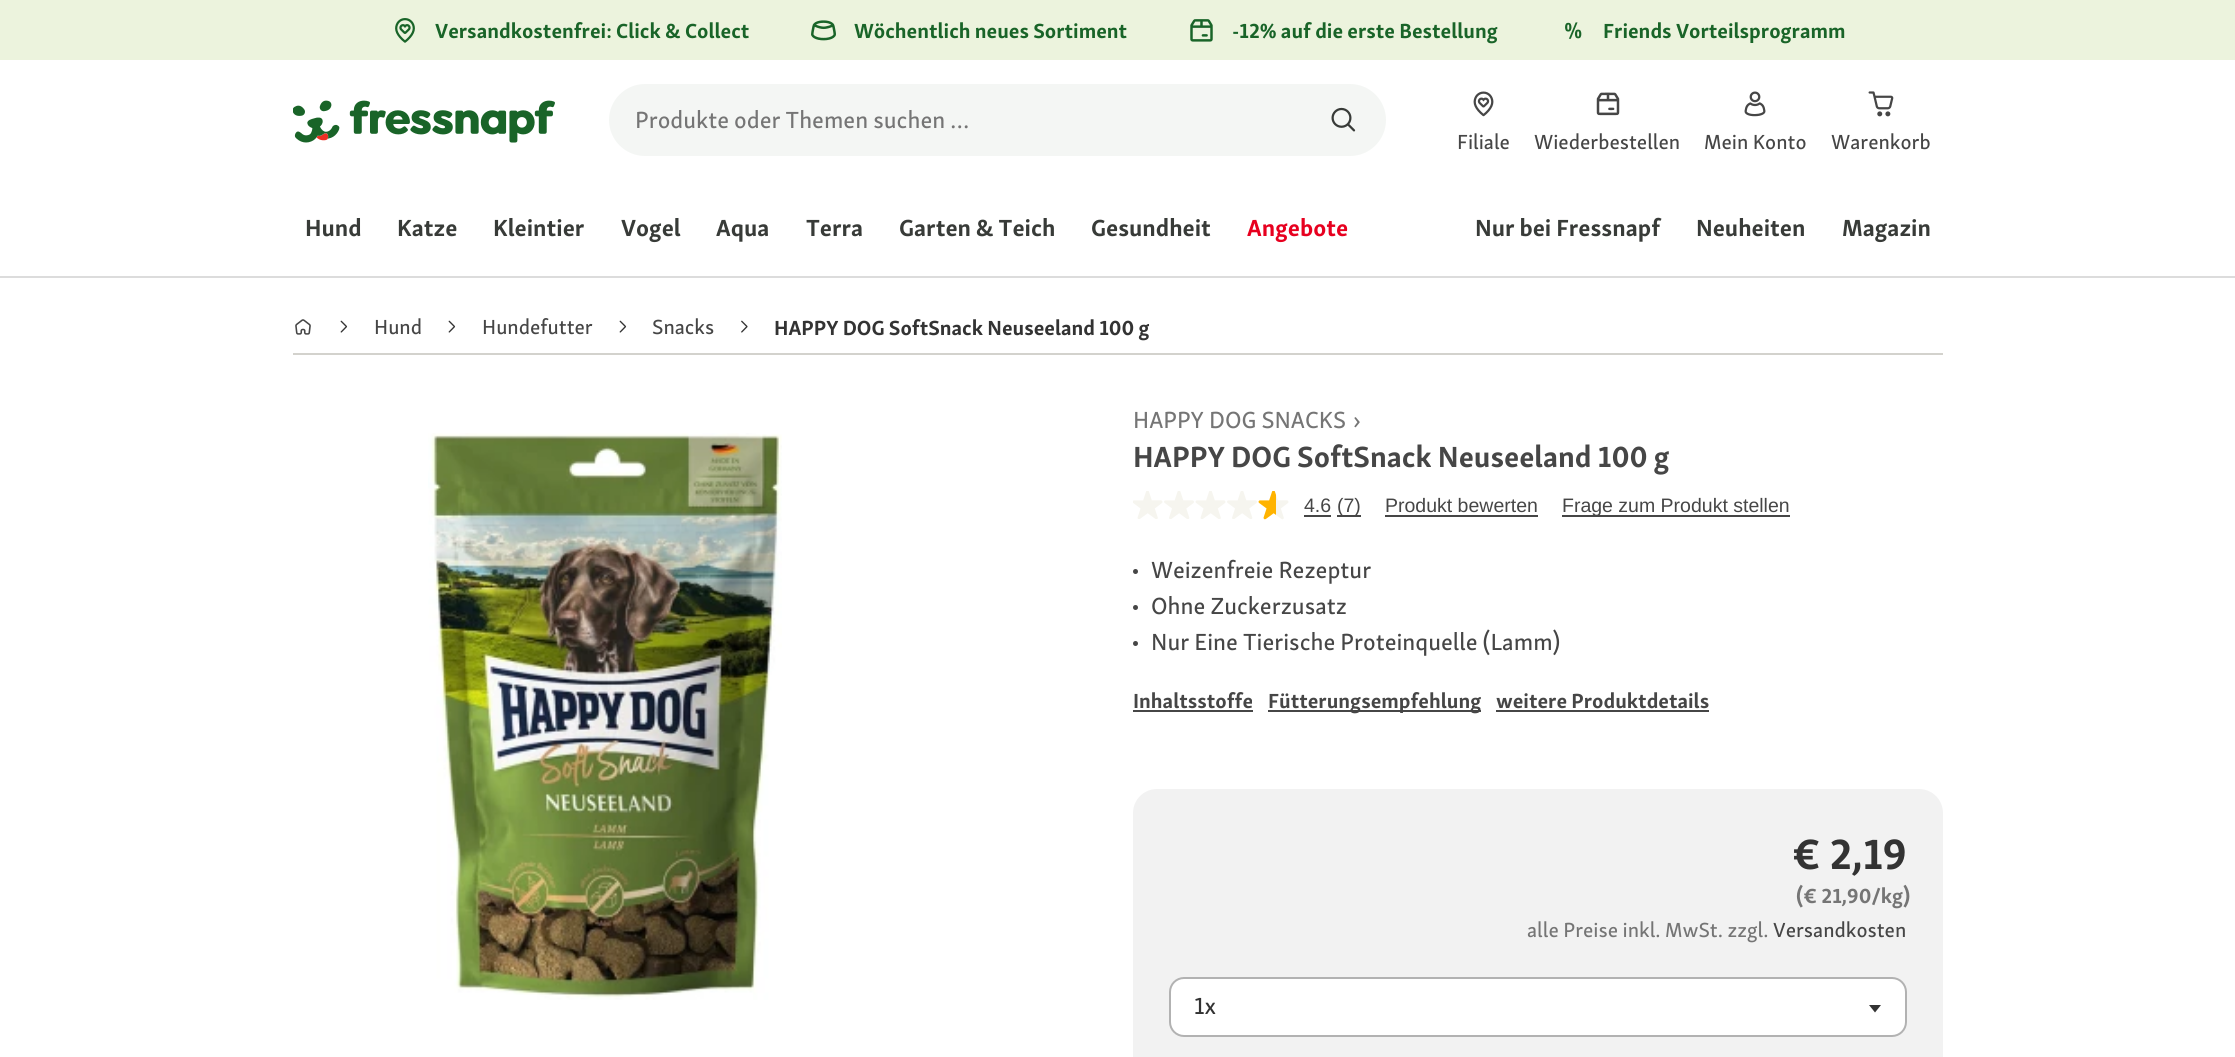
#include <cairo/cairo.h>
#include <math.h>
#include <stddef.h>


static void rounded_rect(cairo_t *cr, double x, double y, double w, double h, double r) {
  cairo_new_sub_path(cr);
  cairo_arc(cr, x + w - r, y + h - r, r, 0, M_PI / 2);
  cairo_arc(cr, x + r, y + h - r, r, M_PI / 2, M_PI);
  cairo_arc(cr, x + r, y + r, r, M_PI, 1.5 * M_PI);
  cairo_arc(cr, x + w - r, y + r, r, 1.5 * M_PI, 2 * M_PI);
  cairo_close_path(cr);
}

static void draw_image(cairo_t *cr, const char *path, double x, double y, double w, double h) {
  cairo_surface_t *image = cairo_image_surface_create_from_png(path);
  cairo_save(cr);
  cairo_set_source_surface(cr, image, x, y);
  cairo_rectangle(cr, x, y, w, h);
  cairo_fill(cr);
  cairo_restore(cr);
  cairo_surface_destroy(image);
}

static void draw(cairo_t *cr) {
  cairo_set_source_rgb(cr, 1, 1, 1);
  cairo_paint(cr);
  cairo_set_source_rgb(cr, 236 / 255.0, 243 / 255.0, 221 / 255.0);
  cairo_rectangle(cr, 0, 0, 2235, 60);
  cairo_fill(cr);
  draw_image(cr, "images/1.png", 395, 18, 20, 25);
  draw_image(cr, "images/2.png", 811, 20, 25, 21);
  draw_image(cr, "images/3.png", 1190, 19, 23, 23);
  draw_image(cr, "images/4.png", 1565, 22, 17, 17);
  draw_image(cr, "images/5.png", 293, 100, 262, 43);
  cairo_set_source_rgb(cr, 244 / 255.0, 246 / 255.0, 244 / 255.0);
  rounded_rect(cr, 609, 84, 777, 72, 36);
  cairo_fill(cr);
  draw_image(cr, "images/6.png", 1331, 107, 25, 25);
  draw_image(cr, "images/7.png", 1473, 91, 21, 26);
  draw_image(cr, "images/8.png", 1596, 92, 24, 24);
  draw_image(cr, "images/9.png", 1744, 91, 22, 26);
  draw_image(cr, "images/10.png", 1868, 91, 26, 26);
  cairo_set_source_rgb(cr, 220 / 255.0, 220 / 255.0, 220 / 255.0);
  cairo_rectangle(cr, 0, 276, 2235, 2);
  cairo_fill(cr);
  cairo_set_source_rgb(cr, 211 / 255.0, 210 / 255.0, 205 / 255.0);
  cairo_rectangle(cr, 293, 353, 1650, 2);
  cairo_fill(cr);
  draw_image(cr, "images/11.png", 295, 319, 16, 16);
  draw_image(cr, "images/12.png", 340, 320, 8, 13);
  draw_image(cr, "images/12.png", 448, 320, 8, 13);
  draw_image(cr, "images/12.png", 619, 320, 8, 13);
  draw_image(cr, "images/13.png", 741, 320, 7, 13);
  draw_image(cr, "images/14.png", 428, 433, 354, 567);
  draw_image(cr, "images/15.png", 1133, 491, 30, 28);
  draw_image(cr, "images/16.png", 1164, 491, 30, 28);
  draw_image(cr, "images/17.png", 1195, 491, 31, 28);
  draw_image(cr, "images/16.png", 1227, 491, 30, 28);
  draw_image(cr, "images/18.png", 1258, 491, 31, 29);
  cairo_set_source_rgb(cr, 70 / 255.0, 70 / 255.0, 70 / 255.0);
  cairo_rectangle(cr, 1304, 515, 27, 2);
  cairo_fill(cr);
  cairo_rectangle(cr, 1337, 515, 24, 2);
  cairo_fill(cr);
  cairo_rectangle(cr, 1385, 515, 153, 2);
  cairo_fill(cr);
  cairo_rectangle(cr, 1562, 515, 228, 2);
  cairo_fill(cr);
  cairo_arc(cr, 1135.5, 571.5, 2.5, 0, 2 * M_PI);
  cairo_fill(cr);
  cairo_arc(cr, 1135.5, 607.5, 2.5, 0, 2 * M_PI);
  cairo_fill(cr);
  cairo_arc(cr, 1135.5, 643.5, 2.5, 0, 2 * M_PI);
  cairo_fill(cr);
  cairo_rectangle(cr, 1133, 710, 120, 2);
  cairo_fill(cr);
  cairo_rectangle(cr, 1268, 710, 213, 2);
  cairo_fill(cr);
  cairo_rectangle(cr, 1496, 710, 213, 2);
  cairo_fill(cr);
  cairo_set_source_rgb(cr, 242 / 255.0, 242 / 255.0, 242 / 255.0);
  rounded_rect(cr, 1133, 789, 810, 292, 24);
  cairo_fill(cr);
  cairo_set_source_rgb(cr, 1, 1, 1);
  rounded_rect(cr, 1170, 978, 736, 58, 14);
  cairo_fill_preserve(cr);
  cairo_set_source_rgb(cr, 178 / 255.0, 178 / 255.0, 178 / 255.0);
  cairo_stroke(cr);
  cairo_set_source_rgb(cr, 51 / 255.0, 51 / 255.0, 51 / 255.0);
  cairo_new_path(cr);
  cairo_move_to(cr, 1869, 1005);
  cairo_line_to(cr, 1881, 1005);
  cairo_line_to(cr, 1875, 1012.5);
  cairo_close_path(cr);
  cairo_fill(cr);
  cairo_select_font_face(cr, "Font", CAIRO_FONT_SLANT_NORMAL, CAIRO_FONT_WEIGHT_BOLD);
  cairo_set_font_size(cr, 21);
  cairo_set_source_rgb(cr, 25 / 255.0, 100 / 255.0, 40 / 255.0);
  cairo_move_to(cr, 435, 38);
  cairo_show_text(cr, "Versandkostenfrei: Click & Collect");
  cairo_move_to(cr, 854, 38);
  cairo_show_text(cr, "Wöchentlich neues Sortiment");
  cairo_move_to(cr, 1232, 38);
  cairo_show_text(cr, "-12% auf die erste Bestellung");
  cairo_move_to(cr, 1603, 38);
  cairo_show_text(cr, "Friends Vorteilsprogramm");
  cairo_select_font_face(cr, "Font Medium", CAIRO_FONT_SLANT_NORMAL, CAIRO_FONT_WEIGHT_NORMAL);
  cairo_set_font_size(cr, 24);
  cairo_set_source_rgb(cr, 117 / 255.0, 117 / 255.0, 117 / 255.0);
  cairo_move_to(cr, 635, 128);
  cairo_show_text(cr, "Produkte oder Themen suchen …");
  cairo_set_font_size(cr, 21);
  cairo_set_source_rgb(cr, 70 / 255.0, 70 / 255.0, 70 / 255.0);
  cairo_move_to(cr, 1457, 149);
  cairo_show_text(cr, "Filiale");
  cairo_move_to(cr, 1534, 149);
  cairo_show_text(cr, "Wiederbestellen");
  cairo_move_to(cr, 1704, 149);
  cairo_show_text(cr, "Mein Konto");
  cairo_move_to(cr, 1831, 149);
  cairo_show_text(cr, "Warenkorb");
  cairo_select_font_face(cr, "Font", CAIRO_FONT_SLANT_NORMAL, CAIRO_FONT_WEIGHT_BOLD);
  cairo_set_font_size(cr, 24);
  cairo_set_source_rgb(cr, 56 / 255.0, 59 / 255.0, 56 / 255.0);
  cairo_move_to(cr, 305, 236);
  cairo_show_text(cr, "Hund");
  cairo_move_to(cr, 397, 236);
  cairo_show_text(cr, "Katze");
  cairo_move_to(cr, 493, 236);
  cairo_show_text(cr, "Kleintier");
  cairo_move_to(cr, 621, 236);
  cairo_show_text(cr, "Vogel");
  cairo_move_to(cr, 716, 236);
  cairo_show_text(cr, "Aqua");
  cairo_move_to(cr, 806, 236);
  cairo_show_text(cr, "Terra");
  cairo_move_to(cr, 899, 236);
  cairo_show_text(cr, "Garten & Teich");
  cairo_move_to(cr, 1091, 236);
  cairo_show_text(cr, "Gesundheit");
  cairo_set_source_rgb(cr, 231 / 255.0, 0, 31 / 255.0);
  cairo_move_to(cr, 1247, 236);
  cairo_show_text(cr, "Angebote");
  cairo_set_source_rgb(cr, 56 / 255.0, 59 / 255.0, 56 / 255.0);
  cairo_move_to(cr, 1475, 236);
  cairo_show_text(cr, "Nur bei Fressnapf");
  cairo_move_to(cr, 1696, 236);
  cairo_show_text(cr, "Neuheiten");
  cairo_move_to(cr, 1842, 236);
  cairo_show_text(cr, "Magazin");
  cairo_select_font_face(cr, "Font Medium", CAIRO_FONT_SLANT_NORMAL, CAIRO_FONT_WEIGHT_NORMAL);
  cairo_set_font_size(cr, 21);
  cairo_set_source_rgb(cr, 70 / 255.0, 70 / 255.0, 70 / 255.0);
  cairo_move_to(cr, 374, 334);
  cairo_show_text(cr, "Hund");
  cairo_move_to(cr, 482, 334);
  cairo_show_text(cr, "Hundefutter");
  cairo_move_to(cr, 652, 334);
  cairo_show_text(cr, "Snacks");
  cairo_select_font_face(cr, "Font", CAIRO_FONT_SLANT_NORMAL, CAIRO_FONT_WEIGHT_BOLD);
  cairo_set_source_rgb(cr, 51 / 255.0, 51 / 255.0, 51 / 255.0);
  cairo_move_to(cr, 774, 335);
  cairo_show_text(cr, "HAPPY DOG SoftSnack Neuseeland 100 g");
  cairo_select_font_face(cr, "Font Medium", CAIRO_FONT_SLANT_NORMAL, CAIRO_FONT_WEIGHT_NORMAL);
  cairo_set_font_size(cr, 24);
  cairo_set_source_rgb(cr, 117 / 255.0, 117 / 255.0, 117 / 255.0);
  cairo_move_to(cr, 1133, 428);
  cairo_show_text(cr, "HAPPY DOG SNACKS");
  cairo_move_to(cr, 1353, 428);
  cairo_show_text(cr, "›");
  cairo_select_font_face(cr, "Font", CAIRO_FONT_SLANT_NORMAL, CAIRO_FONT_WEIGHT_BOLD);
  cairo_set_font_size(cr, 30);
  cairo_set_source_rgb(cr, 70 / 255.0, 70 / 255.0, 70 / 255.0);
  cairo_move_to(cr, 1133, 467);
  cairo_show_text(cr, "HAPPY DOG SoftSnack Neuseeland 100 g");
  cairo_select_font_face(cr, "Liberation Sans", CAIRO_FONT_SLANT_NORMAL, CAIRO_FONT_WEIGHT_NORMAL);
  cairo_set_font_size(cr, 19.5);
  cairo_move_to(cr, 1304, 512);
  cairo_show_text(cr, "4.6");
  cairo_move_to(cr, 1337, 512);
  cairo_show_text(cr, "(7)");
  cairo_move_to(cr, 1385, 512);
  cairo_show_text(cr, "Produkt bewerten");
  cairo_move_to(cr, 1562, 512);
  cairo_show_text(cr, "Frage zum Produkt stellen");
  cairo_select_font_face(cr, "Font Medium", CAIRO_FONT_SLANT_NORMAL, CAIRO_FONT_WEIGHT_NORMAL);
  cairo_set_font_size(cr, 24);
  cairo_move_to(cr, 1151, 578);
  cairo_show_text(cr, "Weizenfreie Rezeptur");
  cairo_move_to(cr, 1151, 614);
  cairo_show_text(cr, "Ohne Zuckerzusatz");
  cairo_move_to(cr, 1151, 650);
  cairo_show_text(cr, "Nur Eine Tierische Proteinquelle (Lamm)");
  cairo_select_font_face(cr, "Font", CAIRO_FONT_SLANT_NORMAL, CAIRO_FONT_WEIGHT_BOLD);
  cairo_set_font_size(cr, 21);
  cairo_move_to(cr, 1133, 708);
  cairo_show_text(cr, "Inhaltsstoffe");
  cairo_move_to(cr, 1268, 708);
  cairo_show_text(cr, "Fütterungsempfehlung");
  cairo_move_to(cr, 1496, 708);
  cairo_show_text(cr, "weitere Produktdetails");
  cairo_set_font_size(cr, 43.5);
  cairo_set_source_rgb(cr, 51 / 255.0, 51 / 255.0, 51 / 255.0);
  cairo_move_to(cr, 1792, 869);
  cairo_show_text(cr, "€ 2,19");
  cairo_set_font_size(cr, 21);
  cairo_set_source_rgb(cr, 117 / 255.0, 117 / 255.0, 117 / 255.0);
  cairo_move_to(cr, 1796, 903);
  cairo_show_text(cr, "(€ 21,90/kg)");
  cairo_select_font_face(cr, "Font Medium", CAIRO_FONT_SLANT_NORMAL, CAIRO_FONT_WEIGHT_NORMAL);
  cairo_move_to(cr, 1527, 937);
  cairo_show_text(cr, "alle Preise inkl. MwSt. zzgl.");
  cairo_set_source_rgb(cr, 70 / 255.0, 70 / 255.0, 70 / 255.0);
  cairo_move_to(cr, 1773, 937);
  cairo_show_text(cr, "Versandkosten");
  cairo_set_font_size(cr, 24);
  cairo_set_source_rgb(cr, 51 / 255.0, 51 / 255.0, 51 / 255.0);
  cairo_move_to(cr, 1194, 1014);
  cairo_show_text(cr, "1x");
}

int main(void) {
  cairo_surface_t *surface = cairo_image_surface_create(CAIRO_FORMAT_RGB24, 2235, 1057);
  cairo_t *cr = cairo_create(surface);
  cairo_font_options_t *options = cairo_font_options_create();
  cairo_font_options_set_hint_metrics(options, CAIRO_HINT_METRICS_OFF);
  cairo_font_options_set_hint_style(options, CAIRO_HINT_STYLE_NONE);
  cairo_set_font_options(cr, options);
  cairo_set_miter_limit(cr, 4);
  draw(cr);
  cairo_surface_write_to_png(surface, "out.png");
  cairo_font_options_destroy(options);
  cairo_destroy(cr);
  cairo_surface_destroy(surface);
  return 0;
}
